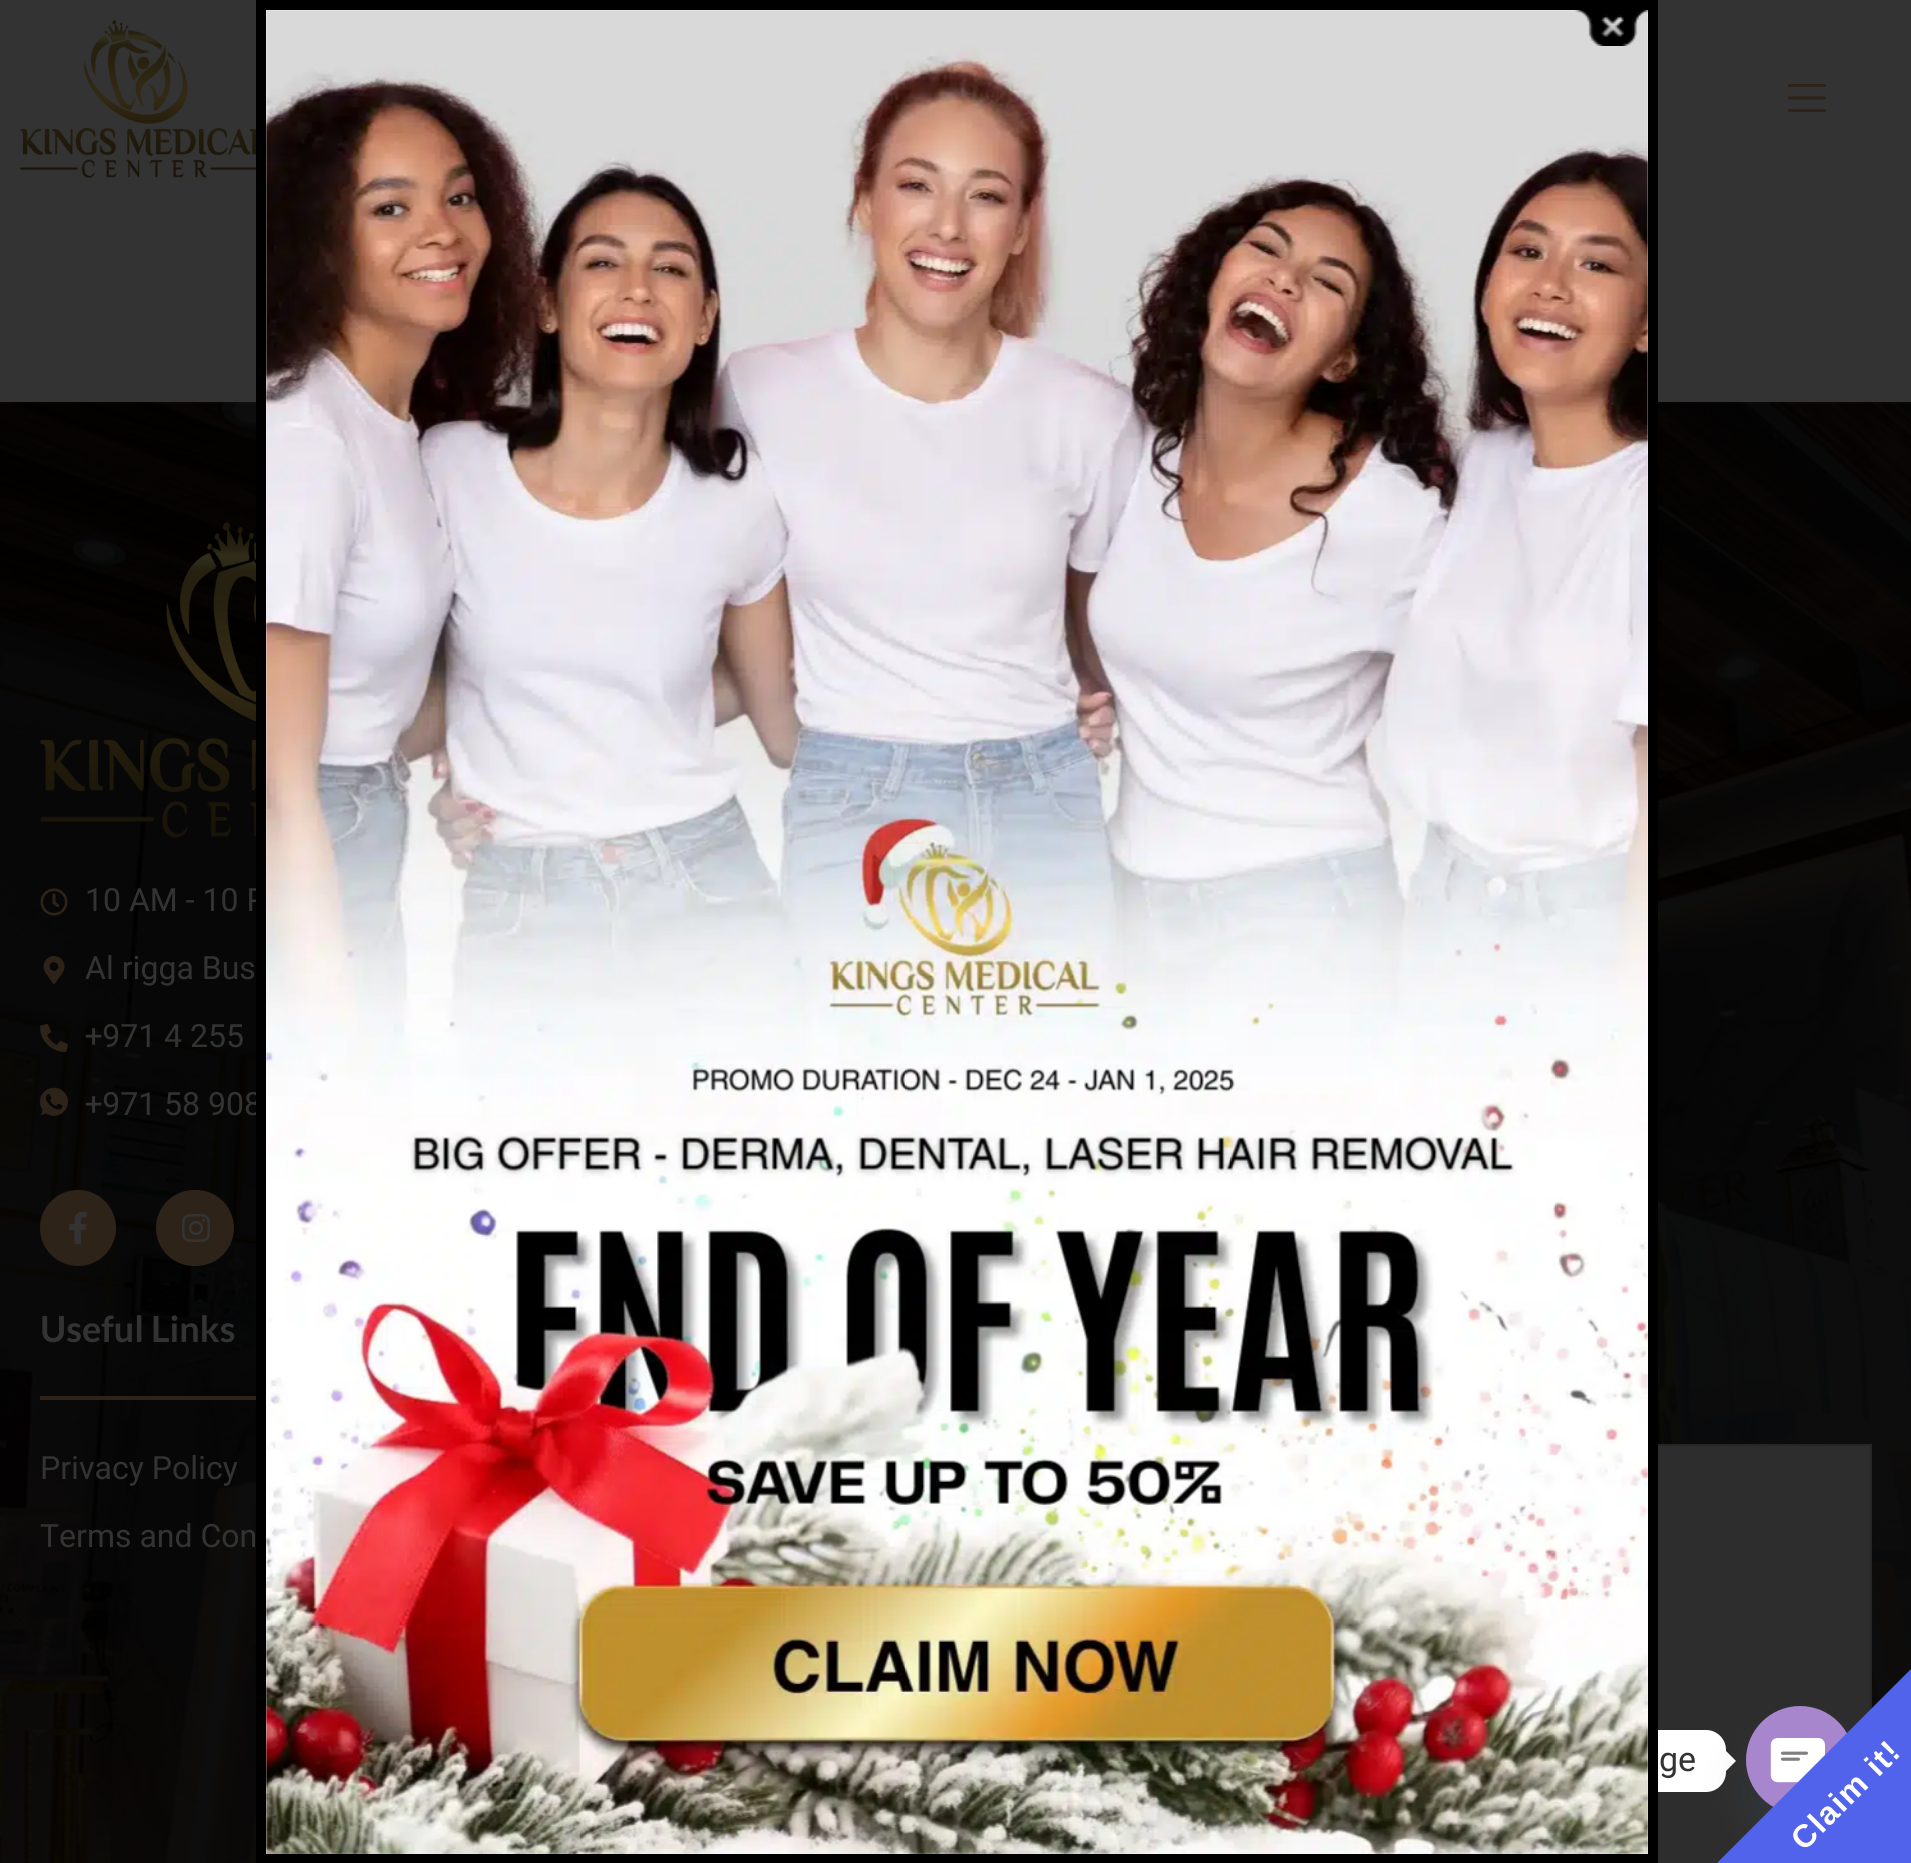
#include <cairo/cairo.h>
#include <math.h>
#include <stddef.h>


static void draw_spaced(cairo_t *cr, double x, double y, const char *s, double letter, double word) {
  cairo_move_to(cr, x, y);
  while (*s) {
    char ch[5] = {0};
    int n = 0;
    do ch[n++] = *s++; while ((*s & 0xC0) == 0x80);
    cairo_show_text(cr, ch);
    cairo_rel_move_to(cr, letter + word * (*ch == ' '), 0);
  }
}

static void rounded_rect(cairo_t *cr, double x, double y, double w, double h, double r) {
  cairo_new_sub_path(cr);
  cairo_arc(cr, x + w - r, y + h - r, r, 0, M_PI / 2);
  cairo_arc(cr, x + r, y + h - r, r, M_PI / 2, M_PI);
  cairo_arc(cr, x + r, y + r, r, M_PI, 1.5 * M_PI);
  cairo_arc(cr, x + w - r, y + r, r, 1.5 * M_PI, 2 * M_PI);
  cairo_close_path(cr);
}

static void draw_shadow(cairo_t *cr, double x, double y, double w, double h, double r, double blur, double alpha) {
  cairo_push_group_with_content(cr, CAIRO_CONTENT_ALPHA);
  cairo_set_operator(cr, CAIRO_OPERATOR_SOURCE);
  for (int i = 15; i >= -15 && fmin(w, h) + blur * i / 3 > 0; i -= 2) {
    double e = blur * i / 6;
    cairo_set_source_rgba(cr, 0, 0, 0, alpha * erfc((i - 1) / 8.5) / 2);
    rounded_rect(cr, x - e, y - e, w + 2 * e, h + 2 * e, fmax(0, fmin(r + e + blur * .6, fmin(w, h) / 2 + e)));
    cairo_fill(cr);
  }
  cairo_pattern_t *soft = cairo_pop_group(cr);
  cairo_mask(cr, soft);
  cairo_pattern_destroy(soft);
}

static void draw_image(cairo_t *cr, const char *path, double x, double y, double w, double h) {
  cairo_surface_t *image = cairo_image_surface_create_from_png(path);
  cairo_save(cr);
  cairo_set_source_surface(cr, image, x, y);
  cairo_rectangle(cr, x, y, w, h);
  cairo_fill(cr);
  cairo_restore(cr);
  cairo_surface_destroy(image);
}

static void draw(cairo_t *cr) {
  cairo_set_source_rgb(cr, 51 / 255.0, 51 / 255.0, 51 / 255.0);
  cairo_paint(cr);
  draw_image(cr, "images/1.png", 20, 20, 236, 158);
  cairo_set_source_rgb(cr, 45 / 255.0, 35 / 255.0, 24 / 255.0);
  cairo_new_path(cr);
  cairo_move_to(cr, 1788, 84);
  cairo_line_to(cr, 1788, 87);
  cairo_line_to(cr, 1826, 87);
  cairo_line_to(cr, 1826, 84);
  cairo_close_path(cr);
  cairo_move_to(cr, 1788, 96.5);
  cairo_line_to(cr, 1788, 99.5);
  cairo_line_to(cr, 1826, 99.5);
  cairo_line_to(cr, 1826, 96.5);
  cairo_close_path(cr);
  cairo_move_to(cr, 1788, 109);
  cairo_line_to(cr, 1788, 112);
  cairo_line_to(cr, 1826, 112);
  cairo_line_to(cr, 1826, 109);
  cairo_close_path(cr);
  cairo_fill(cr);
  draw_image(cr, "images/2.png", 0, 402, 1911, 1461);
  draw_image(cr, "images/3.png", 40, 522, 216, 316);
  draw_image(cr, "images/4.png", 40, 888, 28, 28);
  draw_image(cr, "images/5.png", 43, 956, 22, 28);
  draw_image(cr, "images/6.png", 40, 1024, 28, 28);
  draw_image(cr, "images/7.png", 40, 1087, 28, 29);
  cairo_arc(cr, 78, 1228, 38, 0, 2 * M_PI);
  cairo_fill(cr);
  draw_image(cr, "images/8.png", 69, 1212, 18, 32);
  rounded_rect(cr, 156, 1190, 78, 76, 38);
  cairo_fill(cr);
  draw_image(cr, "images/9.png", 182, 1214, 28, 28);
  cairo_rectangle(cr, 40, 1396, 216, 4);
  cairo_fill(cr);
  draw_image(cr, "images/10.png", 1658, 1444, 214, 419);
  cairo_set_source_rgb(cr, 1, 1, 1);
  rounded_rect(cr, 1416, 1730, 310, 62, 20);
  cairo_fill(cr);
  cairo_rectangle(cr, 266, 10, 1382, 1844);
  cairo_fill(cr);
  draw_image(cr, "images/11.png", 266, 10, 1382, 1844);
  cairo_new_path(cr);
  cairo_move_to(cr, 1726, 1771);
  cairo_line_to(cr, 1726, 1751);
  cairo_line_to(cr, 1736, 1761);
  cairo_close_path(cr);
  cairo_fill(cr);
  cairo_set_source_rgb(cr, 73 / 255.0, 104 / 255.0, 126 / 255.0);
  draw_shadow(cr, 1746, 1738, 108, 108, 54, 24, 0.16);
  draw_image(cr, "images/13.png", 1746, 1706, 101, 101);
  cairo_set_source_rgb(cr, 82 / 255.0, 99 / 255.0, 235 / 255.0);
  cairo_new_path(cr);
  cairo_move_to(cr, 1710, 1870);
  cairo_line_to(cr, 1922, 1658);
  cairo_curve_to(cr, 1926, 1654, 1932, 1654, 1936, 1658);
  cairo_line_to(cr, 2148, 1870);
  cairo_curve_to(cr, 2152, 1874, 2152, 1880, 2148, 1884);
  cairo_line_to(cr, 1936, 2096);
  cairo_curve_to(cr, 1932, 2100, 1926, 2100, 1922, 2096);
  cairo_line_to(cr, 1710, 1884);
  cairo_curve_to(cr, 1706, 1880, 1706, 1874, 1710, 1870);
  cairo_close_path(cr);
  cairo_fill(cr);
  cairo_select_font_face(cr, "Heebo", CAIRO_FONT_SLANT_NORMAL, CAIRO_FONT_WEIGHT_NORMAL);
  cairo_set_font_size(cr, 32);
  cairo_set_source_rgb(cr, 51 / 255.0, 51 / 255.0, 51 / 255.0);
  cairo_move_to(cr, 85, 911);
  cairo_show_text(cr, "10 AM - 10 P");
  cairo_move_to(cr, 85, 979);
  cairo_show_text(cr, "Al rigga Bus");
  cairo_move_to(cr, 85, 1047);
  cairo_show_text(cr, "+971 4 255");
  cairo_move_to(cr, 85, 1115);
  cairo_show_text(cr, "+971 58 908");
  cairo_select_font_face(cr, "Lato", CAIRO_FONT_SLANT_NORMAL, CAIRO_FONT_WEIGHT_BOLD);
  cairo_set_font_size(cr, 36);
  cairo_move_to(cr, 40, 1342);
  cairo_show_text(cr, "Useful Links");
  cairo_select_font_face(cr, "Heebo", CAIRO_FONT_SLANT_NORMAL, CAIRO_FONT_WEIGHT_NORMAL);
  cairo_set_font_size(cr, 32);
  cairo_move_to(cr, 40, 1479);
  cairo_show_text(cr, "Privacy Policy");
  cairo_move_to(cr, 40, 1547);
  cairo_show_text(cr, "Terms and Con");
  cairo_rectangle(cr, 261, 5, 1392, 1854);
  cairo_set_source_rgb(cr, 0, 0, 0);
  cairo_set_line_width(cr, 10);
  cairo_stroke(cr);
  draw_image(cr, "images/12.png", 1574, 10, 74, 36);
  cairo_select_font_face(cr, "Roboto", CAIRO_FONT_SLANT_NORMAL, CAIRO_FONT_WEIGHT_NORMAL);
  cairo_set_font_size(cr, 34);
  cairo_set_source_rgb(cr, 51 / 255.0, 51 / 255.0, 51 / 255.0);
  cairo_move_to(cr, 1659, 1771);
  cairo_show_text(cr, "ge");
  cairo_select_font_face(cr, "Liberation Sans", CAIRO_FONT_SLANT_NORMAL, CAIRO_FONT_WEIGHT_BOLD);
  cairo_set_font_size(cr, 32);
  cairo_set_source_rgb(cr, 1, 1, 1);
  cairo_save(cr);
  cairo_translate(cr, 1804, 1852);
  cairo_rotate(cr, -45 * M_PI / 180);
  draw_spaced(cr, 0, 0, "Claim it!", 1.5, 0);
  cairo_restore(cr);
}

int main(void) {
  cairo_surface_t *surface = cairo_image_surface_create(CAIRO_FORMAT_RGB24, 1911, 1863);
  cairo_t *cr = cairo_create(surface);
  cairo_font_options_t *options = cairo_font_options_create();
  cairo_font_options_set_hint_metrics(options, CAIRO_HINT_METRICS_OFF);
  cairo_font_options_set_hint_style(options, CAIRO_HINT_STYLE_NONE);
  cairo_set_font_options(cr, options);
  cairo_set_miter_limit(cr, 4);
  draw(cr);
  cairo_surface_write_to_png(surface, "out.png");
  cairo_font_options_destroy(options);
  cairo_destroy(cr);
  cairo_surface_destroy(surface);
  return 0;
}
